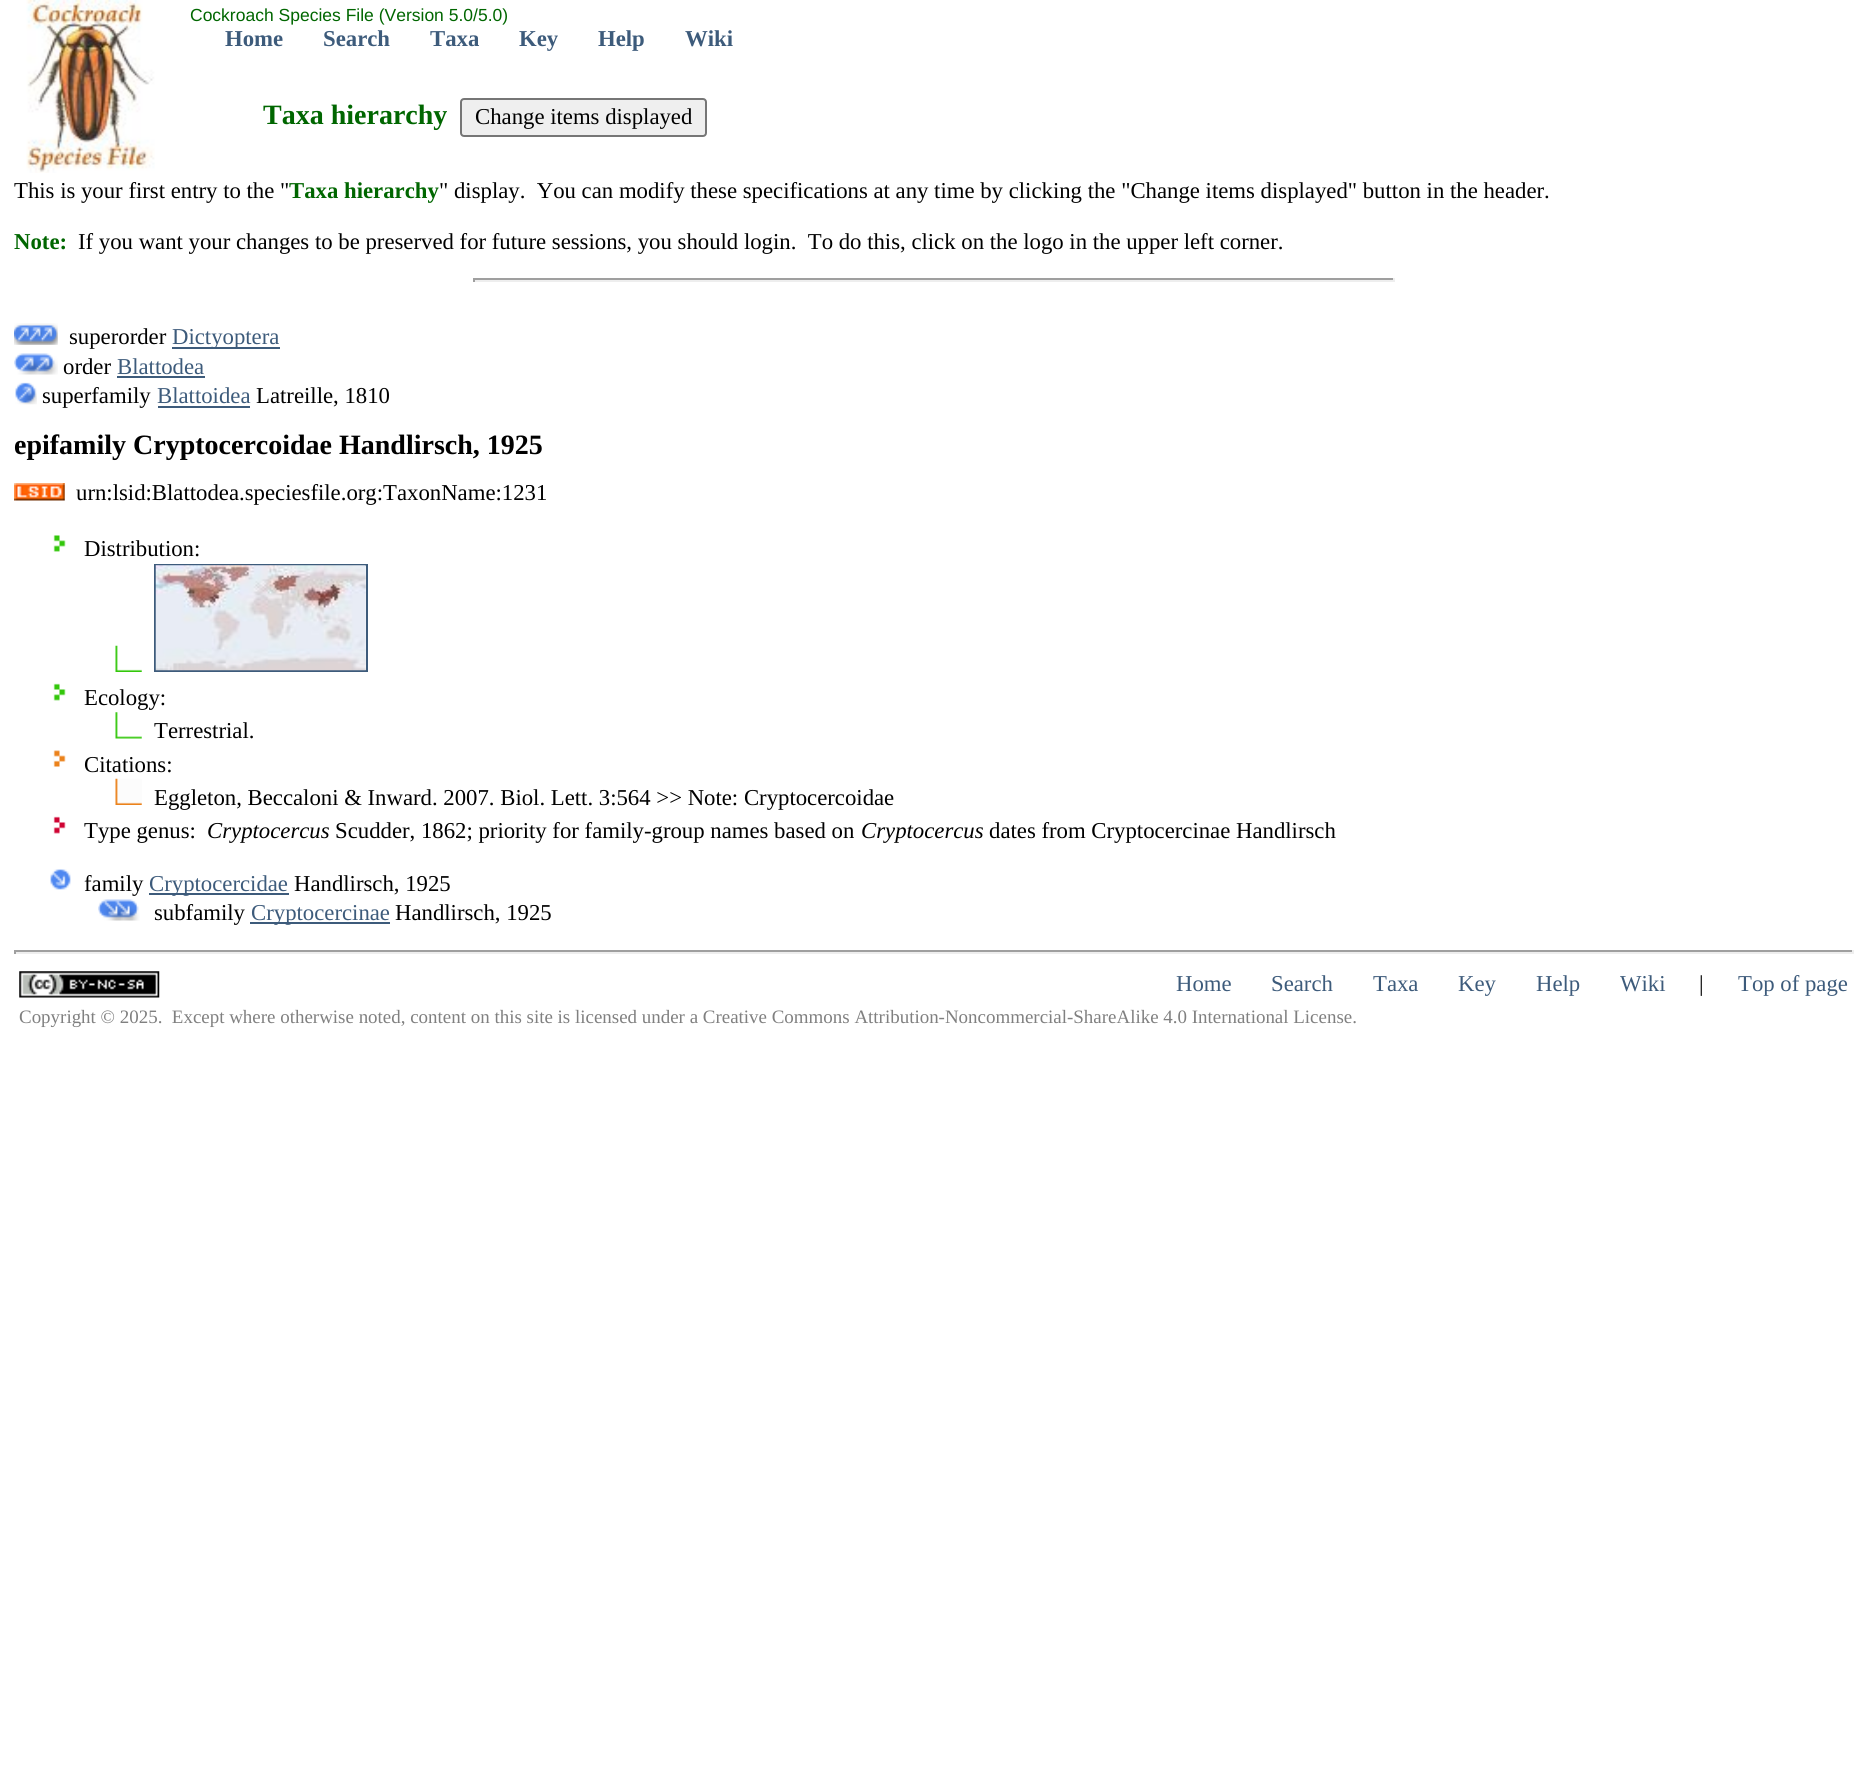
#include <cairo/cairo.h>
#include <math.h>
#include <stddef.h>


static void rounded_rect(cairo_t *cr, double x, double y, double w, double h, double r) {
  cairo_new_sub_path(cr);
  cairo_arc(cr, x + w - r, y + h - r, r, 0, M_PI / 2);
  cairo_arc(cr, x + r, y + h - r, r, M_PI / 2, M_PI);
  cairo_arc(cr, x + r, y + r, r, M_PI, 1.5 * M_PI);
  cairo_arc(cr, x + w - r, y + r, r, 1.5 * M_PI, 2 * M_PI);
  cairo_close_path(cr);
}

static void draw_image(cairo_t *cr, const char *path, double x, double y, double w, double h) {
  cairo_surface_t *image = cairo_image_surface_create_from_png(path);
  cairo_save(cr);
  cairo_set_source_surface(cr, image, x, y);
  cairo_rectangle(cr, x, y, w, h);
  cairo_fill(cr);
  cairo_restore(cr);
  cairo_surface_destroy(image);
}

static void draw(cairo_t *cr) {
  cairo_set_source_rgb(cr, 1, 1, 1);
  cairo_paint(cr);
  draw_image(cr, "images/1.png", 26, 0, 129, 173);
  cairo_set_source_rgb(cr, 239 / 255.0, 239 / 255.0, 239 / 255.0);
  rounded_rect(cr, 461, 99, 245, 37, 3);
  cairo_fill_preserve(cr);
  cairo_set_source_rgb(cr, 118 / 255.0, 118 / 255.0, 118 / 255.0);
  cairo_stroke(cr);
  cairo_set_source_rgb(cr, 159 / 255.0, 159 / 255.0, 159 / 255.0);
  cairo_rectangle(cr, 473, 278, 922, 2);
  cairo_fill(cr);
  cairo_set_source_rgb(cr, 238 / 255.0, 238 / 255.0, 238 / 255.0);
  cairo_rectangle(cr, 1393, 278, 2, 4);
  cairo_fill(cr);
  cairo_rectangle(cr, 473, 280, 922, 2);
  cairo_fill(cr);
  cairo_set_source_rgb(cr, 159 / 255.0, 159 / 255.0, 159 / 255.0);
  cairo_rectangle(cr, 473, 278, 2, 4);
  cairo_fill(cr);
  draw_image(cr, "images/2.png", 14, 323, 44, 22);
  cairo_set_source_rgb(cr, 61 / 255.0, 91 / 255.0, 123 / 255.0);
  cairo_rectangle(cr, 172, 347, 108, 2);
  cairo_fill(cr);
  draw_image(cr, "images/3.png", 14, 353, 44, 22);
  cairo_rectangle(cr, 117, 376, 88, 2);
  cairo_fill(cr);
  draw_image(cr, "images/4.png", 15, 382, 22, 23);
  cairo_rectangle(cr, 158, 406, 92, 2);
  cairo_fill(cr);
  draw_image(cr, "images/5.png", 14, 483, 51, 18);
  draw_image(cr, "images/6.png", 53, 535, 13, 17);
  draw_image(cr, "images/7.png", 115, 645, 27, 27);
  cairo_rectangle(cr, 155, 565, 212, 106);
  cairo_stroke(cr);
  draw_image(cr, "images/8.png", 155, 565, 211, 106);
  draw_image(cr, "images/9.png", 53, 683, 13, 18);
  draw_image(cr, "images/10.png", 115, 712, 27, 27);
  draw_image(cr, "images/11.png", 53, 750, 13, 17);
  draw_image(cr, "images/12.png", 115, 778, 27, 27);
  draw_image(cr, "images/13.png", 53, 816, 13, 18);
  draw_image(cr, "images/14.png", 50, 869, 21, 21);
  cairo_rectangle(cr, 149, 893, 140, 2);
  cairo_fill(cr);
  draw_image(cr, "images/15.png", 98, 899, 42, 22);
  cairo_rectangle(cr, 250, 922, 140, 2);
  cairo_fill(cr);
  cairo_set_source_rgb(cr, 159 / 255.0, 159 / 255.0, 159 / 255.0);
  cairo_rectangle(cr, 14, 950, 1839, 2);
  cairo_fill(cr);
  cairo_set_source_rgb(cr, 238 / 255.0, 238 / 255.0, 238 / 255.0);
  cairo_rectangle(cr, 1852, 950, 2, 4);
  cairo_fill(cr);
  cairo_rectangle(cr, 14, 952, 1839, 2);
  cairo_fill(cr);
  cairo_set_source_rgb(cr, 159 / 255.0, 159 / 255.0, 159 / 255.0);
  cairo_rectangle(cr, 14, 950, 2, 4);
  cairo_fill(cr);
  draw_image(cr, "images/16.png", 19, 971, 141, 27);
  cairo_select_font_face(cr, "Liberation Sans", CAIRO_FONT_SLANT_NORMAL, CAIRO_FONT_WEIGHT_NORMAL);
  cairo_set_font_size(cr, 17.5);
  cairo_set_source_rgb(cr, 0, 102 / 255.0, 0);
  cairo_move_to(cr, 190, 21);
  cairo_show_text(cr, "Cockroach Species File (Version 5.0/5.0)");
  cairo_select_font_face(cr, "Liberation Serif", CAIRO_FONT_SLANT_NORMAL, CAIRO_FONT_WEIGHT_BOLD);
  cairo_set_font_size(cr, 22.75);
  cairo_set_source_rgb(cr, 61 / 255.0, 91 / 255.0, 123 / 255.0);
  cairo_move_to(cr, 225, 46);
  cairo_show_text(cr, "Home");
  cairo_move_to(cr, 323, 46);
  cairo_show_text(cr, "Search");
  cairo_move_to(cr, 430, 46);
  cairo_show_text(cr, "Taxa");
  cairo_move_to(cr, 519, 46);
  cairo_show_text(cr, "Key");
  cairo_move_to(cr, 598, 46);
  cairo_show_text(cr, "Help");
  cairo_move_to(cr, 685, 46);
  cairo_show_text(cr, "Wiki");
  cairo_set_font_size(cr, 28);
  cairo_set_source_rgb(cr, 0, 102 / 255.0, 0);
  cairo_move_to(cr, 263, 124);
  cairo_show_text(cr, "Taxa hierarchy");
  cairo_select_font_face(cr, "Liberation Serif", CAIRO_FONT_SLANT_NORMAL, CAIRO_FONT_WEIGHT_NORMAL);
  cairo_set_font_size(cr, 22.75);
  cairo_set_source_rgb(cr, 0, 0, 0);
  cairo_move_to(cr, 475, 124);
  cairo_show_text(cr, "Change items displayed");
  cairo_move_to(cr, 14, 198);
  cairo_show_text(cr, "This is your first entry to the \"");
  cairo_select_font_face(cr, "Liberation Serif", CAIRO_FONT_SLANT_NORMAL, CAIRO_FONT_WEIGHT_BOLD);
  cairo_set_source_rgb(cr, 0, 102 / 255.0, 0);
  cairo_move_to(cr, 289, 198);
  cairo_show_text(cr, "Taxa hierarchy");
  cairo_select_font_face(cr, "Liberation Serif", CAIRO_FONT_SLANT_NORMAL, CAIRO_FONT_WEIGHT_NORMAL);
  cairo_set_source_rgb(cr, 0, 0, 0);
  cairo_move_to(cr, 439, 198);
  cairo_show_text(cr, "\" display.  You can modify these specifications at any time by clicking the \"Change items displayed\" button in the header.");
  cairo_select_font_face(cr, "Liberation Serif", CAIRO_FONT_SLANT_NORMAL, CAIRO_FONT_WEIGHT_BOLD);
  cairo_set_source_rgb(cr, 0, 102 / 255.0, 0);
  cairo_move_to(cr, 14, 249);
  cairo_show_text(cr, "Note:");
  cairo_select_font_face(cr, "Liberation Serif", CAIRO_FONT_SLANT_NORMAL, CAIRO_FONT_WEIGHT_NORMAL);
  cairo_set_source_rgb(cr, 0, 0, 0);
  cairo_move_to(cr, 78, 249);
  cairo_show_text(cr, "If you want your changes to be preserved for future sessions, you should login.  To do this, click on the logo in the upper left corner.");
  cairo_move_to(cr, 69, 344);
  cairo_show_text(cr, "superorder");
  cairo_set_source_rgb(cr, 61 / 255.0, 91 / 255.0, 123 / 255.0);
  cairo_move_to(cr, 172, 344);
  cairo_show_text(cr, "Dictyoptera");
  cairo_set_source_rgb(cr, 0, 0, 0);
  cairo_move_to(cr, 63, 374);
  cairo_show_text(cr, "order");
  cairo_set_source_rgb(cr, 61 / 255.0, 91 / 255.0, 123 / 255.0);
  cairo_move_to(cr, 117, 374);
  cairo_show_text(cr, "Blattodea");
  cairo_set_source_rgb(cr, 0, 0, 0);
  cairo_move_to(cr, 42, 403);
  cairo_show_text(cr, "superfamily");
  cairo_set_source_rgb(cr, 61 / 255.0, 91 / 255.0, 123 / 255.0);
  cairo_move_to(cr, 157, 403);
  cairo_show_text(cr, "Blattoidea");
  cairo_set_source_rgb(cr, 0, 0, 0);
  cairo_move_to(cr, 256, 403);
  cairo_show_text(cr, "Latreille, 1810");
  cairo_select_font_face(cr, "Liberation Serif", CAIRO_FONT_SLANT_NORMAL, CAIRO_FONT_WEIGHT_BOLD);
  cairo_set_font_size(cr, 28);
  cairo_move_to(cr, 14, 454);
  cairo_show_text(cr, "epifamily Cryptocercoidae Handlirsch, 1925");
  cairo_select_font_face(cr, "Liberation Serif", CAIRO_FONT_SLANT_NORMAL, CAIRO_FONT_WEIGHT_NORMAL);
  cairo_set_font_size(cr, 22.75);
  cairo_move_to(cr, 76, 500);
  cairo_show_text(cr, "urn:lsid:Blattodea.speciesfile.org:TaxonName:1231");
  cairo_move_to(cr, 84, 556);
  cairo_show_text(cr, "Distribution:");
  cairo_move_to(cr, 84, 705);
  cairo_show_text(cr, "Ecology:");
  cairo_move_to(cr, 154, 738);
  cairo_show_text(cr, "Terrestrial.");
  cairo_move_to(cr, 84, 772);
  cairo_show_text(cr, "Citations:");
  cairo_move_to(cr, 154, 805);
  cairo_show_text(cr, "Eggleton, Beccaloni & Inward. 2007. Biol. Lett. 3:564 >> Note: Cryptocercoidae");
  cairo_move_to(cr, 84, 838);
  cairo_show_text(cr, "Type genus:");
  cairo_select_font_face(cr, "Liberation Serif", CAIRO_FONT_SLANT_ITALIC, CAIRO_FONT_WEIGHT_NORMAL);
  cairo_move_to(cr, 207, 838);
  cairo_show_text(cr, "Cryptocercus");
  cairo_select_font_face(cr, "Liberation Serif", CAIRO_FONT_SLANT_NORMAL, CAIRO_FONT_WEIGHT_NORMAL);
  cairo_move_to(cr, 335, 838);
  cairo_show_text(cr, "Scudder, 1862; priority for family-group names based on");
  cairo_select_font_face(cr, "Liberation Serif", CAIRO_FONT_SLANT_ITALIC, CAIRO_FONT_WEIGHT_NORMAL);
  cairo_move_to(cr, 861, 838);
  cairo_show_text(cr, "Cryptocercus");
  cairo_select_font_face(cr, "Liberation Serif", CAIRO_FONT_SLANT_NORMAL, CAIRO_FONT_WEIGHT_NORMAL);
  cairo_move_to(cr, 989, 838);
  cairo_show_text(cr, "dates from Cryptocercinae Handlirsch");
  cairo_move_to(cr, 84, 891);
  cairo_show_text(cr, "family");
  cairo_set_source_rgb(cr, 61 / 255.0, 91 / 255.0, 123 / 255.0);
  cairo_move_to(cr, 149, 891);
  cairo_show_text(cr, "Cryptocercidae");
  cairo_set_source_rgb(cr, 0, 0, 0);
  cairo_move_to(cr, 294, 891);
  cairo_show_text(cr, "Handlirsch, 1925");
  cairo_move_to(cr, 154, 920);
  cairo_show_text(cr, "subfamily");
  cairo_set_source_rgb(cr, 61 / 255.0, 91 / 255.0, 123 / 255.0);
  cairo_move_to(cr, 251, 920);
  cairo_show_text(cr, "Cryptocercinae");
  cairo_set_source_rgb(cr, 0, 0, 0);
  cairo_move_to(cr, 395, 920);
  cairo_show_text(cr, "Handlirsch, 1925");
  cairo_set_source_rgb(cr, 61 / 255.0, 91 / 255.0, 123 / 255.0);
  cairo_move_to(cr, 1176, 991);
  cairo_show_text(cr, "Home");
  cairo_move_to(cr, 1271, 991);
  cairo_show_text(cr, "Search");
  cairo_move_to(cr, 1373, 991);
  cairo_show_text(cr, "Taxa");
  cairo_move_to(cr, 1458, 991);
  cairo_show_text(cr, "Key");
  cairo_move_to(cr, 1536, 991);
  cairo_show_text(cr, "Help");
  cairo_move_to(cr, 1620, 991);
  cairo_show_text(cr, "Wiki");
  cairo_set_source_rgb(cr, 0, 0, 0);
  cairo_move_to(cr, 1699, 991);
  cairo_show_text(cr, "|");
  cairo_set_source_rgb(cr, 61 / 255.0, 91 / 255.0, 123 / 255.0);
  cairo_move_to(cr, 1738, 991);
  cairo_show_text(cr, "Top of page");
  cairo_set_font_size(cr, 18.95);
  cairo_set_source_rgb(cr, 128 / 255.0, 128 / 255.0, 128 / 255.0);
  cairo_move_to(cr, 19, 1023);
  cairo_show_text(cr, "Copyright © 2025.  Except where otherwise noted, content on this site is licensed under a Creative Commons Attribution-Noncommercial-ShareAlike 4.0 International License.");
}

int main(void) {
  cairo_surface_t *surface = cairo_image_surface_create(CAIRO_FORMAT_RGB24, 1867, 1779);
  cairo_t *cr = cairo_create(surface);
  cairo_font_options_t *options = cairo_font_options_create();
  cairo_font_options_set_hint_metrics(options, CAIRO_HINT_METRICS_OFF);
  cairo_font_options_set_hint_style(options, CAIRO_HINT_STYLE_NONE);
  cairo_set_font_options(cr, options);
  cairo_set_miter_limit(cr, 4);
  draw(cr);
  cairo_surface_write_to_png(surface, "out.png");
  cairo_font_options_destroy(options);
  cairo_destroy(cr);
  cairo_surface_destroy(surface);
  return 0;
}
